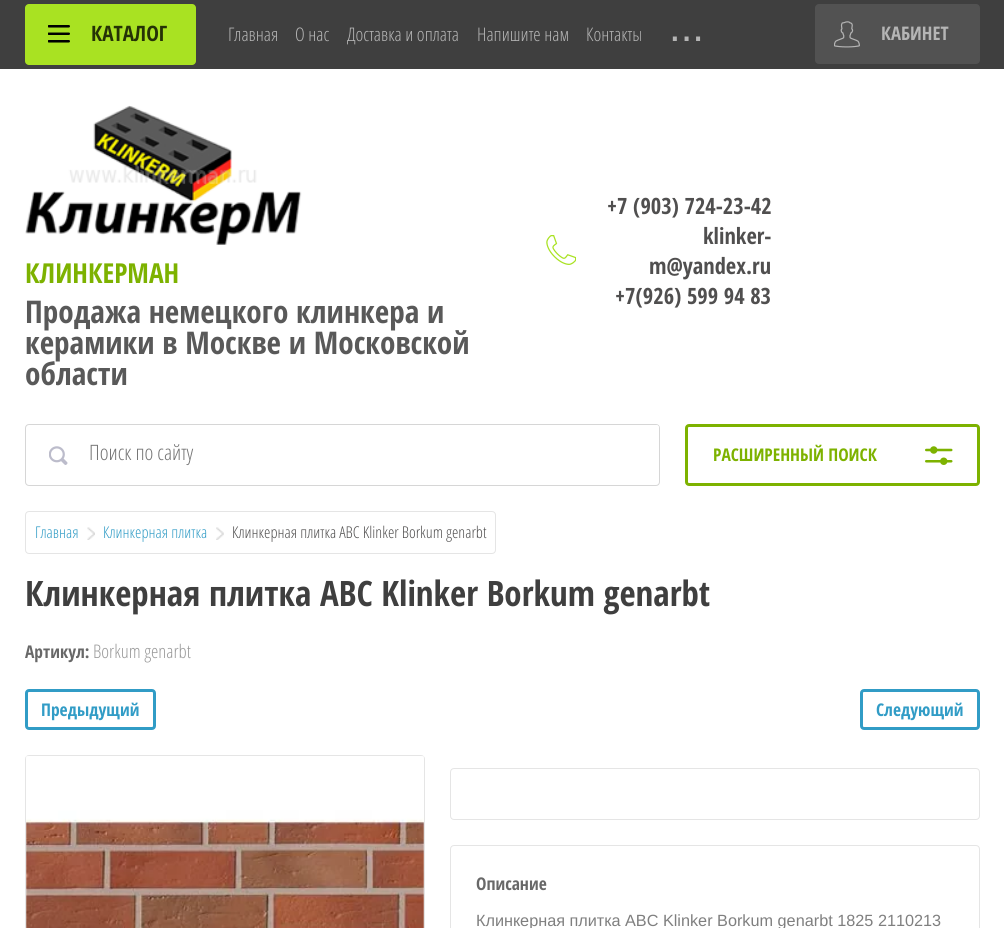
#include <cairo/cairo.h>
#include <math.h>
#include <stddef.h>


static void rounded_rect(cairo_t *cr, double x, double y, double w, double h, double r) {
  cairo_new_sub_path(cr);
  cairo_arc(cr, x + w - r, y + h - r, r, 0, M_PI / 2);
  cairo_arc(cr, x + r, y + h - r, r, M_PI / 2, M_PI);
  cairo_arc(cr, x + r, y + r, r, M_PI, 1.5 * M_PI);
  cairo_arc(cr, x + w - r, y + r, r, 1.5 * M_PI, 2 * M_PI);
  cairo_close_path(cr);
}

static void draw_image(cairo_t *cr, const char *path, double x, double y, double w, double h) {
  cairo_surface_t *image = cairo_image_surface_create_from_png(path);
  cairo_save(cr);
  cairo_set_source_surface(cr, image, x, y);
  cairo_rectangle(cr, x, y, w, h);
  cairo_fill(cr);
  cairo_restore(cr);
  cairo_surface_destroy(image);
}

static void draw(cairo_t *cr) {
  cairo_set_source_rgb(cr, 1, 1, 1);
  cairo_paint(cr);
  cairo_set_source_rgb(cr, 63 / 255.0, 63 / 255.0, 63 / 255.0);
  cairo_rectangle(cr, 0, 0, 1004, 69);
  cairo_fill(cr);
  cairo_set_source_rgb(cr, 169 / 255.0, 226 / 255.0, 34 / 255.0);
  rounded_rect(cr, 25, 4, 171, 61, 4);
  cairo_fill(cr);
  draw_image(cr, "images/1.png", 48, 25, 22, 18);
  cairo_set_source_rgb(cr, 82 / 255.0, 82 / 255.0, 82 / 255.0);
  rounded_rect(cr, 815, 4, 165, 60, 4);
  cairo_fill(cr);
  draw_image(cr, "images/2.png", 834, 21, 26, 27);
  draw_image(cr, "images/3.png", 25, 105, 277, 140);
  draw_image(cr, "images/4.png", 546, 235, 30, 30);
  rounded_rect(cr, 25.5, 424.5, 634, 61, 3.5);
  cairo_set_source_rgb(cr, 214 / 255.0, 214 / 255.0, 214 / 255.0);
  cairo_set_line_width(cr, 1);
  cairo_stroke(cr);
  draw_image(cr, "images/5.png", 49, 446, 19, 19);
  cairo_set_source_rgb(cr, 1, 1, 1);
  rounded_rect(cr, 89, 425, 570, 54, 2.5);
  cairo_fill(cr);
  rounded_rect(cr, 686.5, 425.5, 292, 59, 2.5);
  cairo_set_source_rgb(cr, 125 / 255.0, 178 / 255.0, 0);
  cairo_set_line_width(cr, 3);
  cairo_stroke(cr);
  draw_image(cr, "images/6.png", 925, 446, 28, 19);
  rounded_rect(cr, 25.5, 511.5, 470, 42, 3.5);
  cairo_set_source_rgb(cr, 229 / 255.0, 229 / 255.0, 229 / 255.0);
  cairo_set_line_width(cr, 1);
  cairo_stroke(cr);
  draw_image(cr, "images/7.png", 87, 527, 8, 13);
  draw_image(cr, "images/8.png", 216, 527, 8, 13);
  rounded_rect(cr, 26.5, 690.5, 128, 38, 2.5);
  cairo_set_source_rgb(cr, 49 / 255.0, 156 / 255.0, 198 / 255.0);
  cairo_set_line_width(cr, 3);
  cairo_stroke(cr);
  rounded_rect(cr, 861.5, 690.5, 117, 38, 2.5);
  cairo_stroke(cr);
  rounded_rect(cr, 25.5, 755.5, 399, 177, 3.5);
  cairo_set_source_rgb(cr, 229 / 255.0, 229 / 255.0, 229 / 255.0);
  cairo_set_line_width(cr, 1);
  cairo_stroke(cr);
  draw_image(cr, "images/9.png", 26, 756, 398, 172);
  rounded_rect(cr, 450.5, 768.5, 529, 51, 3.5);
  cairo_stroke(cr);
  rounded_rect(cr, 450.5, 845.5, 529, 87, 3.5);
  cairo_stroke(cr);
  cairo_select_font_face(cr, "Open Sans Condensed", CAIRO_FONT_SLANT_NORMAL, CAIRO_FONT_WEIGHT_BOLD);
  cairo_set_font_size(cr, 21.25);
  cairo_set_source_rgb(cr, 37 / 255.0, 50 / 255.0, 6 / 255.0);
  cairo_move_to(cr, 91, 41);
  cairo_show_text(cr, "КАТАЛОГ");
  cairo_select_font_face(cr, "Open Sans Light", CAIRO_FONT_SLANT_NORMAL, CAIRO_FONT_WEIGHT_NORMAL);
  cairo_set_font_size(cr, 18.75);
  cairo_set_source_rgb(cr, 181 / 255.0, 181 / 255.0, 181 / 255.0);
  cairo_move_to(cr, 228, 41);
  cairo_show_text(cr, "Главная");
  cairo_move_to(cr, 295, 41);
  cairo_show_text(cr, "О нас");
  cairo_move_to(cr, 347, 41);
  cairo_show_text(cr, "Доставка и оплата");
  cairo_move_to(cr, 477, 41);
  cairo_show_text(cr, "Напишите нам");
  cairo_move_to(cr, 586, 41);
  cairo_show_text(cr, "Контакты");
  cairo_select_font_face(cr, "Liberation Sans", CAIRO_FONT_SLANT_NORMAL, CAIRO_FONT_WEIGHT_NORMAL);
  cairo_set_font_size(cr, 42);
  cairo_move_to(cr, 669, 41);
  cairo_show_text(cr, "...");
  cairo_select_font_face(cr, "Open Sans Condensed", CAIRO_FONT_SLANT_NORMAL, CAIRO_FONT_WEIGHT_BOLD);
  cairo_set_font_size(cr, 18.75);
  cairo_move_to(cr, 881, 40);
  cairo_show_text(cr, "КАБИНЕТ");
  cairo_set_font_size(cr, 27.5);
  cairo_set_source_rgb(cr, 125 / 255.0, 178 / 255.0, 0);
  cairo_move_to(cr, 25, 283);
  cairo_show_text(cr, "КЛИНКЕРМАН");
  cairo_set_font_size(cr, 31.25);
  cairo_set_source_rgb(cr, 89 / 255.0, 89 / 255.0, 89 / 255.0);
  cairo_move_to(cr, 25, 323);
  cairo_show_text(cr, "Продажа немецкого клинкера и");
  cairo_move_to(cr, 25, 354);
  cairo_show_text(cr, "керамики в Москве и Московской");
  cairo_move_to(cr, 25, 385);
  cairo_show_text(cr, "области");
  cairo_set_font_size(cr, 22.5);
  cairo_set_source_rgb(cr, 80 / 255.0, 79 / 255.0, 79 / 255.0);
  cairo_move_to(cr, 607, 214);
  cairo_show_text(cr, "+7 (903) 724-23-42");
  cairo_move_to(cr, 703, 244);
  cairo_show_text(cr, "klinker-");
  cairo_move_to(cr, 649, 274);
  cairo_show_text(cr, "m@yandex.ru");
  cairo_move_to(cr, 615, 304);
  cairo_show_text(cr, "+7(926) 599 94 83");
  cairo_select_font_face(cr, "Open Sans Light", CAIRO_FONT_SLANT_NORMAL, CAIRO_FONT_WEIGHT_NORMAL);
  cairo_set_font_size(cr, 21.25);
  cairo_set_source_rgb(cr, 117 / 255.0, 117 / 255.0, 117 / 255.0);
  cairo_move_to(cr, 89, 460);
  cairo_show_text(cr, "Поиск по сайту");
  cairo_select_font_face(cr, "Open Sans Condensed", CAIRO_FONT_SLANT_NORMAL, CAIRO_FONT_WEIGHT_BOLD);
  cairo_set_font_size(cr, 17.5);
  cairo_set_source_rgb(cr, 125 / 255.0, 178 / 255.0, 0);
  cairo_move_to(cr, 713, 461);
  cairo_show_text(cr, "РАСШИРЕННЫЙ ПОИСК");
  cairo_select_font_face(cr, "Open Sans Light", CAIRO_FONT_SLANT_NORMAL, CAIRO_FONT_WEIGHT_NORMAL);
  cairo_set_font_size(cr, 16.25);
  cairo_set_source_rgb(cr, 49 / 255.0, 156 / 255.0, 198 / 255.0);
  cairo_move_to(cr, 35, 538);
  cairo_show_text(cr, "Главная");
  cairo_move_to(cr, 103, 538);
  cairo_show_text(cr, "Клинкерная плитка");
  cairo_set_source_rgb(cr, 80 / 255.0, 79 / 255.0, 79 / 255.0);
  cairo_move_to(cr, 232, 538);
  cairo_show_text(cr, "Клинкерная плитка ABC Klinker Borkum genarbt");
  cairo_select_font_face(cr, "Open Sans Condensed", CAIRO_FONT_SLANT_NORMAL, CAIRO_FONT_WEIGHT_BOLD);
  cairo_set_font_size(cr, 35);
  cairo_set_source_rgb(cr, 63 / 255.0, 63 / 255.0, 63 / 255.0);
  cairo_move_to(cr, 25, 606);
  cairo_show_text(cr, "Клинкерная плитка ABC Klinker Borkum genarbt");
  cairo_set_font_size(cr, 17.5);
  cairo_set_source_rgb(cr, 104 / 255.0, 104 / 255.0, 104 / 255.0);
  cairo_move_to(cr, 25, 658);
  cairo_show_text(cr, "Артикул:");
  cairo_select_font_face(cr, "Open Sans Light", CAIRO_FONT_SLANT_NORMAL, CAIRO_FONT_WEIGHT_NORMAL);
  cairo_set_font_size(cr, 18.75);
  cairo_set_source_rgb(cr, 153 / 255.0, 153 / 255.0, 153 / 255.0);
  cairo_move_to(cr, 93, 658);
  cairo_show_text(cr, "Borkum genarbt");
  cairo_select_font_face(cr, "Open Sans Condensed", CAIRO_FONT_SLANT_NORMAL, CAIRO_FONT_WEIGHT_BOLD);
  cairo_set_font_size(cr, 17.5);
  cairo_set_source_rgb(cr, 49 / 255.0, 156 / 255.0, 198 / 255.0);
  cairo_move_to(cr, 41, 716);
  cairo_show_text(cr, "Предыдущий");
  cairo_move_to(cr, 876, 716);
  cairo_show_text(cr, "Следующий");
  cairo_set_source_rgb(cr, 104 / 255.0, 104 / 255.0, 104 / 255.0);
  cairo_move_to(cr, 476, 890);
  cairo_show_text(cr, "Описание");
  cairo_select_font_face(cr, "Liberation Sans", CAIRO_FONT_SLANT_NORMAL, CAIRO_FONT_WEIGHT_NORMAL);
  cairo_set_font_size(cr, 16.25);
  cairo_set_source_rgb(cr, 127 / 255.0, 127 / 255.0, 127 / 255.0);
  cairo_move_to(cr, 476, 926);
  cairo_show_text(cr, "Клинкерная плитка ABC Klinker Borkum genarbt 1825 2110213");
}

int main(void) {
  cairo_surface_t *surface = cairo_image_surface_create(CAIRO_FORMAT_RGB24, 1004, 928);
  cairo_t *cr = cairo_create(surface);
  cairo_font_options_t *options = cairo_font_options_create();
  cairo_font_options_set_hint_metrics(options, CAIRO_HINT_METRICS_OFF);
  cairo_font_options_set_hint_style(options, CAIRO_HINT_STYLE_NONE);
  cairo_set_font_options(cr, options);
  cairo_set_miter_limit(cr, 4);
  draw(cr);
  cairo_surface_write_to_png(surface, "out.png");
  cairo_font_options_destroy(options);
  cairo_destroy(cr);
  cairo_surface_destroy(surface);
  return 0;
}
